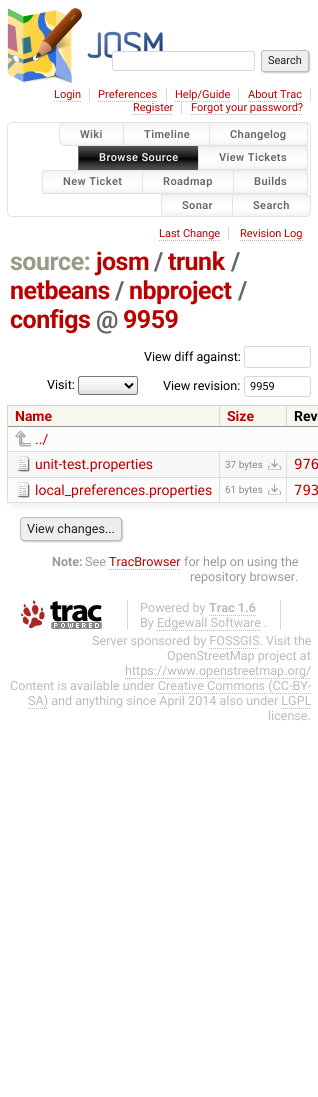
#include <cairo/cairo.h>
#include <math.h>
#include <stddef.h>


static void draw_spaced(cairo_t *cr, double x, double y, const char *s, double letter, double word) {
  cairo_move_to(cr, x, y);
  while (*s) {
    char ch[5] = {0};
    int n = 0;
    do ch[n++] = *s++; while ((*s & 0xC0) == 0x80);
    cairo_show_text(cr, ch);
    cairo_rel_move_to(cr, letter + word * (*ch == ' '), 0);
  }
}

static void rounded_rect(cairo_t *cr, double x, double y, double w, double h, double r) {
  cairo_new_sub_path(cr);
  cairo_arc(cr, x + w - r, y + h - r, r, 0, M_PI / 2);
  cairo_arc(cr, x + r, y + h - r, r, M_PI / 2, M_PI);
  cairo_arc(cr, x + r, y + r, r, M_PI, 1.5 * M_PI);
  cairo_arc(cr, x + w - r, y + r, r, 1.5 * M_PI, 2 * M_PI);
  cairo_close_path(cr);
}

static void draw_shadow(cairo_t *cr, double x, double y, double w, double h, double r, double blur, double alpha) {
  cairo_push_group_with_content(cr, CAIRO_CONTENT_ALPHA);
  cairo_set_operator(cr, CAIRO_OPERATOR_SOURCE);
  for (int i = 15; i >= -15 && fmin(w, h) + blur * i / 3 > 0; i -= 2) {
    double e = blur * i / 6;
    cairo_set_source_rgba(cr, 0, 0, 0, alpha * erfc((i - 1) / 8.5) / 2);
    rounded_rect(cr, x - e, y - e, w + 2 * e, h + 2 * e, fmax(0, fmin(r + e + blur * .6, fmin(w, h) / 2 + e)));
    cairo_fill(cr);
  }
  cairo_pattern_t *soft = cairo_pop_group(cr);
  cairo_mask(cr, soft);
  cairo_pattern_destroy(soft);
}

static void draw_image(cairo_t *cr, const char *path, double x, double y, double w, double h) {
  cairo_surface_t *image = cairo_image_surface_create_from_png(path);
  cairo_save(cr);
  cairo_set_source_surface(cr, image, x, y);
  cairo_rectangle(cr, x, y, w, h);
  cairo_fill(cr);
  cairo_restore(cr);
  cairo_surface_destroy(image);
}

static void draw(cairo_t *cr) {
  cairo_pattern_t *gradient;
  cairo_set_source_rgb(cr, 1, 1, 1);
  cairo_paint(cr);
  draw_image(cr, "images/1.png", 7, 8, 156, 75);
  cairo_set_source_rgb(cr, 1, 1, 1);
  rounded_rect(cr, 112.5, 51.5, 142, 19, 2.5);
  cairo_fill_preserve(cr);
  cairo_set_source_rgb(cr, 215 / 255.0, 215 / 255.0, 215 / 255.0);
  cairo_set_line_width(cr, 1);
  cairo_stroke(cr);
  cairo_set_source_rgb(cr, 204 / 255.0, 204 / 255.0, 204 / 255.0);
  draw_shadow(cr, 262, 51, 48, 22, 3, 0.5, 1);
  cairo_set_source_rgb(cr, 238 / 255.0, 238 / 255.0, 238 / 255.0);
  rounded_rect(cr, 261.5, 50.5, 47, 21, 2.5);
  cairo_fill_preserve(cr);
  cairo_set_source_rgb(cr, 187 / 255.0, 187 / 255.0, 187 / 255.0);
  cairo_stroke(cr);
  cairo_set_source_rgb(cr, 215 / 255.0, 215 / 255.0, 215 / 255.0);
  cairo_rectangle(cr, 89, 88, 1, 13);
  cairo_fill(cr);
  cairo_new_path(cr);
  cairo_move_to(cr, 54, 101.5);
  cairo_line_to(cr, 81, 101.5);
  cairo_set_source_rgb(cr, 187 / 255.0, 187 / 255.0, 187 / 255.0);
  cairo_set_dash(cr, (double[]){1, 1}, 2, 0);
  cairo_stroke(cr);
  cairo_set_source_rgb(cr, 215 / 255.0, 215 / 255.0, 215 / 255.0);
  cairo_rectangle(cr, 166, 88, 1, 13);
  cairo_fill(cr);
  cairo_new_path(cr);
  cairo_move_to(cr, 98, 101.5);
  cairo_line_to(cr, 157, 101.5);
  cairo_set_source_rgb(cr, 187 / 255.0, 187 / 255.0, 187 / 255.0);
  cairo_stroke(cr);
  cairo_set_source_rgb(cr, 215 / 255.0, 215 / 255.0, 215 / 255.0);
  cairo_rectangle(cr, 238, 88, 1, 13);
  cairo_fill(cr);
  cairo_new_path(cr);
  cairo_move_to(cr, 175, 101.5);
  cairo_line_to(cr, 230, 101.5);
  cairo_set_source_rgb(cr, 187 / 255.0, 187 / 255.0, 187 / 255.0);
  cairo_stroke(cr);
  cairo_set_source_rgb(cr, 215 / 255.0, 215 / 255.0, 215 / 255.0);
  cairo_rectangle(cr, 310, 88, 1, 13);
  cairo_fill(cr);
  cairo_new_path(cr);
  cairo_move_to(cr, 248, 101.5);
  cairo_line_to(cr, 302, 101.5);
  cairo_set_source_rgb(cr, 187 / 255.0, 187 / 255.0, 187 / 255.0);
  cairo_stroke(cr);
  cairo_set_source_rgb(cr, 215 / 255.0, 215 / 255.0, 215 / 255.0);
  cairo_rectangle(cr, 181, 101, 1, 13);
  cairo_fill(cr);
  cairo_new_path(cr);
  cairo_move_to(cr, 133, 114.5);
  cairo_line_to(cr, 173, 114.5);
  cairo_set_source_rgb(cr, 187 / 255.0, 187 / 255.0, 187 / 255.0);
  cairo_stroke(cr);
  cairo_new_path(cr);
  cairo_move_to(cr, 191, 114.5);
  cairo_line_to(cr, 303, 114.5);
  cairo_stroke(cr);
  rounded_rect(cr, 7.5, 122.5, 303, 94, 4.5);
  cairo_set_source_rgb(cr, 228 / 255.0, 228 / 255.0, 228 / 255.0);
  cairo_set_dash(cr, NULL, 0, 0);
  cairo_stroke(cr);
  cairo_save(cr);
  cairo_new_path(cr);
  cairo_move_to(cr, 65, 122);
  cairo_line_to(cr, 124, 122);
  cairo_line_to(cr, 124, 146);
  cairo_line_to(cr, 65, 146);
  cairo_curve_to(cr, 61.5, 146, 59, 143.5, 59, 140);
  cairo_line_to(cr, 59, 128);
  cairo_curve_to(cr, 59, 124.5, 61.5, 122, 65, 122);
  cairo_close_path(cr);
  cairo_clip(cr);
  gradient = cairo_pattern_create_linear(92, 123, 92, 145);
  cairo_pattern_add_color_stop_rgba(gradient, 0, 242 / 255.0, 242 / 255.0, 242 / 255.0, 1);
  cairo_pattern_add_color_stop_rgba(gradient, 0.25, 250 / 255.0, 250 / 255.0, 250 / 255.0, 1);
  cairo_pattern_add_color_stop_rgba(gradient, 0.49, 254 / 255.0, 254 / 255.0, 254 / 255.0, 1);
  cairo_pattern_add_color_stop_rgba(gradient, 0.51, 1, 1, 1, 1);
  cairo_pattern_add_color_stop_rgba(gradient, 0.85, 250 / 255.0, 250 / 255.0, 250 / 255.0, 1);
  cairo_pattern_add_color_stop_rgba(gradient, 1, 242 / 255.0, 242 / 255.0, 242 / 255.0, 1);
  cairo_set_source(cr, gradient);
  cairo_pattern_destroy(gradient);
  cairo_rectangle(cr, 59, 123, 64, 22);
  cairo_fill(cr);
  cairo_restore(cr);
  cairo_new_path(cr);
  cairo_move_to(cr, 65, 122.5);
  cairo_line_to(cr, 123.5, 122.5);
  cairo_line_to(cr, 123.5, 145.5);
  cairo_line_to(cr, 65, 145.5);
  cairo_curve_to(cr, 62, 145.5, 59.5, 143, 59.5, 140);
  cairo_line_to(cr, 59.5, 128);
  cairo_curve_to(cr, 59.5, 125, 62, 122.5, 65, 122.5);
  cairo_close_path(cr);
  cairo_stroke(cr);
  gradient = cairo_pattern_create_linear(167, 123, 167, 145);
  cairo_pattern_add_color_stop_rgba(gradient, 0, 242 / 255.0, 242 / 255.0, 242 / 255.0, 1);
  cairo_pattern_add_color_stop_rgba(gradient, 0.25, 250 / 255.0, 250 / 255.0, 250 / 255.0, 1);
  cairo_pattern_add_color_stop_rgba(gradient, 0.49, 254 / 255.0, 254 / 255.0, 254 / 255.0, 1);
  cairo_pattern_add_color_stop_rgba(gradient, 0.51, 1, 1, 1, 1);
  cairo_pattern_add_color_stop_rgba(gradient, 0.85, 250 / 255.0, 250 / 255.0, 250 / 255.0, 1);
  cairo_pattern_add_color_stop_rgba(gradient, 1, 242 / 255.0, 242 / 255.0, 242 / 255.0, 1);
  cairo_set_source(cr, gradient);
  cairo_pattern_destroy(gradient);
  cairo_rectangle(cr, 124, 123, 85, 22);
  cairo_fill(cr);
  cairo_rectangle(cr, 123.5, 122.5, 86, 23);
  cairo_set_source_rgb(cr, 228 / 255.0, 228 / 255.0, 228 / 255.0);
  cairo_stroke(cr);
  gradient = cairo_pattern_create_linear(259, 123, 259, 145);
  cairo_pattern_add_color_stop_rgba(gradient, 0, 242 / 255.0, 242 / 255.0, 242 / 255.0, 1);
  cairo_pattern_add_color_stop_rgba(gradient, 0.25, 250 / 255.0, 250 / 255.0, 250 / 255.0, 1);
  cairo_pattern_add_color_stop_rgba(gradient, 0.49, 254 / 255.0, 254 / 255.0, 254 / 255.0, 1);
  cairo_pattern_add_color_stop_rgba(gradient, 0.51, 1, 1, 1, 1);
  cairo_pattern_add_color_stop_rgba(gradient, 0.85, 250 / 255.0, 250 / 255.0, 250 / 255.0, 1);
  cairo_pattern_add_color_stop_rgba(gradient, 1, 242 / 255.0, 242 / 255.0, 242 / 255.0, 1);
  cairo_set_source(cr, gradient);
  cairo_pattern_destroy(gradient);
  cairo_rectangle(cr, 210, 123, 97, 22);
  cairo_fill(cr);
  cairo_rectangle(cr, 209.5, 122.5, 98, 23);
  cairo_set_source_rgb(cr, 228 / 255.0, 228 / 255.0, 228 / 255.0);
  cairo_stroke(cr);
  cairo_rectangle(cr, 78.5, 146.5, 120, 23);
  cairo_set_source_rgb(cr, 102 / 255.0, 102 / 255.0, 102 / 255.0);
  cairo_stroke(cr);
  gradient = cairo_pattern_create_linear(139, 146, 139, 170);
  cairo_pattern_add_color_stop_rgba(gradient, 0, 85 / 255.0, 85 / 255.0, 85 / 255.0, 1);
  cairo_pattern_add_color_stop_rgba(gradient, 0.25, 51 / 255.0, 51 / 255.0, 51 / 255.0, 1);
  cairo_pattern_add_color_stop_rgba(gradient, 0.49, 17 / 255.0, 17 / 255.0, 17 / 255.0, 1);
  cairo_pattern_add_color_stop_rgba(gradient, 0.51, 0, 0, 0, 1);
  cairo_pattern_add_color_stop_rgba(gradient, 0.75, 51 / 255.0, 51 / 255.0, 51 / 255.0, 1);
  cairo_pattern_add_color_stop_rgba(gradient, 1, 85 / 255.0, 85 / 255.0, 85 / 255.0, 1);
  cairo_set_source(cr, gradient);
  cairo_pattern_destroy(gradient);
  cairo_rectangle(cr, 79, 146, 119, 24);
  cairo_fill(cr);
  gradient = cairo_pattern_create_linear(253, 147, 253, 169);
  cairo_pattern_add_color_stop_rgba(gradient, 0, 242 / 255.0, 242 / 255.0, 242 / 255.0, 1);
  cairo_pattern_add_color_stop_rgba(gradient, 0.25, 250 / 255.0, 250 / 255.0, 250 / 255.0, 1);
  cairo_pattern_add_color_stop_rgba(gradient, 0.49, 254 / 255.0, 254 / 255.0, 254 / 255.0, 1);
  cairo_pattern_add_color_stop_rgba(gradient, 0.51, 1, 1, 1, 1);
  cairo_pattern_add_color_stop_rgba(gradient, 0.85, 250 / 255.0, 250 / 255.0, 250 / 255.0, 1);
  cairo_pattern_add_color_stop_rgba(gradient, 1, 242 / 255.0, 242 / 255.0, 242 / 255.0, 1);
  cairo_set_source(cr, gradient);
  cairo_pattern_destroy(gradient);
  cairo_rectangle(cr, 199, 147, 108, 22);
  cairo_fill(cr);
  cairo_rectangle(cr, 198.5, 146.5, 109, 23);
  cairo_set_source_rgb(cr, 228 / 255.0, 228 / 255.0, 228 / 255.0);
  cairo_stroke(cr);
  gradient = cairo_pattern_create_linear(93, 171, 93, 193);
  cairo_pattern_add_color_stop_rgba(gradient, 0, 242 / 255.0, 242 / 255.0, 242 / 255.0, 1);
  cairo_pattern_add_color_stop_rgba(gradient, 0.25, 250 / 255.0, 250 / 255.0, 250 / 255.0, 1);
  cairo_pattern_add_color_stop_rgba(gradient, 0.49, 254 / 255.0, 254 / 255.0, 254 / 255.0, 1);
  cairo_pattern_add_color_stop_rgba(gradient, 0.51, 1, 1, 1, 1);
  cairo_pattern_add_color_stop_rgba(gradient, 0.85, 250 / 255.0, 250 / 255.0, 250 / 255.0, 1);
  cairo_pattern_add_color_stop_rgba(gradient, 1, 242 / 255.0, 242 / 255.0, 242 / 255.0, 1);
  cairo_set_source(cr, gradient);
  cairo_pattern_destroy(gradient);
  cairo_rectangle(cr, 43, 171, 99, 22);
  cairo_fill(cr);
  cairo_rectangle(cr, 42.5, 170.5, 100, 23);
  cairo_set_source_rgb(cr, 228 / 255.0, 228 / 255.0, 228 / 255.0);
  cairo_stroke(cr);
  gradient = cairo_pattern_create_linear(188, 171, 188, 193);
  cairo_pattern_add_color_stop_rgba(gradient, 0, 242 / 255.0, 242 / 255.0, 242 / 255.0, 1);
  cairo_pattern_add_color_stop_rgba(gradient, 0.25, 250 / 255.0, 250 / 255.0, 250 / 255.0, 1);
  cairo_pattern_add_color_stop_rgba(gradient, 0.49, 254 / 255.0, 254 / 255.0, 254 / 255.0, 1);
  cairo_pattern_add_color_stop_rgba(gradient, 0.51, 1, 1, 1, 1);
  cairo_pattern_add_color_stop_rgba(gradient, 0.85, 250 / 255.0, 250 / 255.0, 250 / 255.0, 1);
  cairo_pattern_add_color_stop_rgba(gradient, 1, 242 / 255.0, 242 / 255.0, 242 / 255.0, 1);
  cairo_set_source(cr, gradient);
  cairo_pattern_destroy(gradient);
  cairo_rectangle(cr, 143, 171, 90, 22);
  cairo_fill(cr);
  cairo_rectangle(cr, 142.5, 170.5, 91, 23);
  cairo_set_source_rgb(cr, 228 / 255.0, 228 / 255.0, 228 / 255.0);
  cairo_stroke(cr);
  gradient = cairo_pattern_create_linear(271, 171, 271, 193);
  cairo_pattern_add_color_stop_rgba(gradient, 0, 242 / 255.0, 242 / 255.0, 242 / 255.0, 1);
  cairo_pattern_add_color_stop_rgba(gradient, 0.25, 250 / 255.0, 250 / 255.0, 250 / 255.0, 1);
  cairo_pattern_add_color_stop_rgba(gradient, 0.49, 254 / 255.0, 254 / 255.0, 254 / 255.0, 1);
  cairo_pattern_add_color_stop_rgba(gradient, 0.51, 1, 1, 1, 1);
  cairo_pattern_add_color_stop_rgba(gradient, 0.85, 250 / 255.0, 250 / 255.0, 250 / 255.0, 1);
  cairo_pattern_add_color_stop_rgba(gradient, 1, 242 / 255.0, 242 / 255.0, 242 / 255.0, 1);
  cairo_set_source(cr, gradient);
  cairo_pattern_destroy(gradient);
  cairo_rectangle(cr, 234, 171, 73, 22);
  cairo_fill(cr);
  cairo_rectangle(cr, 233.5, 170.5, 74, 23);
  cairo_set_source_rgb(cr, 228 / 255.0, 228 / 255.0, 228 / 255.0);
  cairo_stroke(cr);
  gradient = cairo_pattern_create_linear(197, 195, 197, 216);
  cairo_pattern_add_color_stop_rgba(gradient, 0, 242 / 255.0, 242 / 255.0, 242 / 255.0, 1);
  cairo_pattern_add_color_stop_rgba(gradient, 0.25, 250 / 255.0, 250 / 255.0, 250 / 255.0, 1);
  cairo_pattern_add_color_stop_rgba(gradient, 0.49, 254 / 255.0, 254 / 255.0, 254 / 255.0, 1);
  cairo_pattern_add_color_stop_rgba(gradient, 0.51, 1, 1, 1, 1);
  cairo_pattern_add_color_stop_rgba(gradient, 0.85, 250 / 255.0, 250 / 255.0, 250 / 255.0, 1);
  cairo_pattern_add_color_stop_rgba(gradient, 1, 242 / 255.0, 242 / 255.0, 242 / 255.0, 1);
  cairo_set_source(cr, gradient);
  cairo_pattern_destroy(gradient);
  cairo_rectangle(cr, 162, 195, 70, 21);
  cairo_fill(cr);
  cairo_rectangle(cr, 161.5, 194.5, 71, 22);
  cairo_set_source_rgb(cr, 228 / 255.0, 228 / 255.0, 228 / 255.0);
  cairo_stroke(cr);
  cairo_save(cr);
  cairo_new_path(cr);
  cairo_move_to(cr, 232, 194);
  cairo_line_to(cr, 305, 194);
  cairo_curve_to(cr, 308.5, 194, 311, 196.5, 311, 200);
  cairo_line_to(cr, 311, 211);
  cairo_curve_to(cr, 311, 214.5, 308.5, 217, 305, 217);
  cairo_line_to(cr, 232, 217);
  cairo_close_path(cr);
  cairo_clip(cr);
  gradient = cairo_pattern_create_linear(272, 195, 272, 216);
  cairo_pattern_add_color_stop_rgba(gradient, 0, 242 / 255.0, 242 / 255.0, 242 / 255.0, 1);
  cairo_pattern_add_color_stop_rgba(gradient, 0.25, 250 / 255.0, 250 / 255.0, 250 / 255.0, 1);
  cairo_pattern_add_color_stop_rgba(gradient, 0.49, 254 / 255.0, 254 / 255.0, 254 / 255.0, 1);
  cairo_pattern_add_color_stop_rgba(gradient, 0.51, 1, 1, 1, 1);
  cairo_pattern_add_color_stop_rgba(gradient, 0.85, 250 / 255.0, 250 / 255.0, 250 / 255.0, 1);
  cairo_pattern_add_color_stop_rgba(gradient, 1, 242 / 255.0, 242 / 255.0, 242 / 255.0, 1);
  cairo_set_source(cr, gradient);
  cairo_pattern_destroy(gradient);
  cairo_rectangle(cr, 233, 195, 78, 21);
  cairo_fill(cr);
  cairo_restore(cr);
  cairo_new_path(cr);
  cairo_move_to(cr, 232.5, 194.5);
  cairo_line_to(cr, 305, 194.5);
  cairo_curve_to(cr, 308, 194.5, 310.5, 197, 310.5, 200);
  cairo_line_to(cr, 310.5, 211);
  cairo_curve_to(cr, 310.5, 214, 308, 216.5, 305, 216.5);
  cairo_line_to(cr, 232.5, 216.5);
  cairo_close_path(cr);
  cairo_stroke(cr);
  cairo_set_source_rgb(cr, 215 / 255.0, 215 / 255.0, 215 / 255.0);
  cairo_rectangle(cr, 228, 227, 1, 13);
  cairo_fill(cr);
  cairo_new_path(cr);
  cairo_move_to(cr, 159, 240.5);
  cairo_line_to(cr, 220, 240.5);
  cairo_set_source_rgb(cr, 187 / 255.0, 187 / 255.0, 187 / 255.0);
  cairo_set_dash(cr, (double[]){1, 1}, 2, 0);
  cairo_stroke(cr);
  cairo_new_path(cr);
  cairo_move_to(cr, 240, 240.5);
  cairo_line_to(cr, 303, 240.5);
  cairo_stroke(cr);
  rounded_rect(cr, 244.5, 346.5, 66, 21, 2.5);
  cairo_set_source_rgb(cr, 215 / 255.0, 215 / 255.0, 215 / 255.0);
  cairo_set_dash(cr, NULL, 0, 0);
  cairo_stroke(cr);
  cairo_save(cr);
  rounded_rect(cr, 78, 376, 60, 19, 2.5);
  cairo_clip(cr);
  gradient = cairo_pattern_create_linear(108, 394, 108, 377);
  cairo_pattern_add_color_stop_rgba(gradient, 0, 219 / 255.0, 219 / 255.0, 219 / 255.0, 1);
  cairo_pattern_add_color_stop_rgba(gradient, 0.3, 238 / 255.0, 238 / 255.0, 238 / 255.0, 1);
  cairo_pattern_add_color_stop_rgba(gradient, 1, 251 / 255.0, 251 / 255.0, 251 / 255.0, 1);
  cairo_set_source(cr, gradient);
  cairo_pattern_destroy(gradient);
  cairo_rectangle(cr, 78, 377, 60, 17);
  cairo_fill(cr);
  cairo_restore(cr);
  rounded_rect(cr, 78.5, 376.5, 59, 18, 2);
  cairo_set_source_rgb(cr, 118 / 255.0, 118 / 255.0, 118 / 255.0);
  cairo_stroke(cr);
  cairo_new_path(cr);
  cairo_move_to(cr, 125, 383.5);
  cairo_line_to(cr, 129, 387.5);
  cairo_line_to(cr, 133, 383.5);
  cairo_set_source_rgb(cr, 0, 0, 0);
  cairo_set_line_width(cr, 2);
  cairo_stroke(cr);
  rounded_rect(cr, 244.5, 376.5, 66, 20, 2.5);
  cairo_set_source_rgb(cr, 215 / 255.0, 215 / 255.0, 215 / 255.0);
  cairo_set_line_width(cr, 1);
  cairo_stroke(cr);
  cairo_set_source_rgb(cr, 242 / 255.0, 242 / 255.0, 242 / 255.0);
  draw_shadow(cr, 11, 409, 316, 98, 0, 3, 1);
  cairo_set_source_rgb(cr, 247 / 255.0, 247 / 255.0, 240 / 255.0);
  cairo_rectangle(cr, 8, 406, 310, 20);
  cairo_fill(cr);
  cairo_set_source_rgb(cr, 215 / 255.0, 215 / 255.0, 215 / 255.0);
  cairo_rectangle(cr, 286, 405, 32, 1);
  cairo_fill(cr);
  cairo_set_source_rgb(cr, 153 / 255.0, 153 / 255.0, 153 / 255.0);
  cairo_rectangle(cr, 286, 426, 32, 1);
  cairo_fill(cr);
  cairo_set_source_rgb(cr, 215 / 255.0, 215 / 255.0, 215 / 255.0);
  cairo_rectangle(cr, 286, 405, 1, 22);
  cairo_fill(cr);
  cairo_rectangle(cr, 219, 405, 68, 1);
  cairo_fill(cr);
  cairo_set_source_rgb(cr, 153 / 255.0, 153 / 255.0, 153 / 255.0);
  cairo_rectangle(cr, 219, 426, 68, 1);
  cairo_fill(cr);
  cairo_set_source_rgb(cr, 215 / 255.0, 215 / 255.0, 215 / 255.0);
  cairo_rectangle(cr, 219, 405, 1, 22);
  cairo_fill(cr);
  cairo_rectangle(cr, 7, 405, 213, 1);
  cairo_fill(cr);
  cairo_set_source_rgb(cr, 221 / 255.0, 221 / 255.0, 221 / 255.0);
  cairo_rectangle(cr, 7, 451, 311, 1);
  cairo_fill(cr);
  cairo_rectangle(cr, 7, 477, 311, 1);
  cairo_fill(cr);
  cairo_rectangle(cr, 286, 502, 32, 1);
  cairo_fill(cr);
  cairo_set_source_rgb(cr, 247 / 255.0, 247 / 255.0, 247 / 255.0);
  cairo_rectangle(cr, 8, 452, 310, 25);
  cairo_fill(cr);
  cairo_set_source_rgb(cr, 252 / 255.0, 252 / 255.0, 252 / 255.0);
  cairo_rectangle(cr, 10, 478, 308, 24);
  cairo_fill(cr);
  cairo_set_source_rgb(cr, 221 / 255.0, 221 / 255.0, 221 / 255.0);
  cairo_rectangle(cr, 286, 451, 1, 52);
  cairo_fill(cr);
  cairo_rectangle(cr, 219, 502, 68, 1);
  cairo_fill(cr);
  cairo_rectangle(cr, 219, 451, 1, 52);
  cairo_fill(cr);
  cairo_rectangle(cr, 7, 502, 213, 1);
  cairo_fill(cr);
  cairo_rectangle(cr, 7, 426, 1, 77);
  cairo_fill(cr);
  cairo_set_source_rgb(cr, 153 / 255.0, 153 / 255.0, 153 / 255.0);
  cairo_rectangle(cr, 7, 426, 213, 1);
  cairo_fill(cr);
  cairo_set_source_rgb(cr, 215 / 255.0, 215 / 255.0, 215 / 255.0);
  cairo_rectangle(cr, 7, 405, 1, 22);
  cairo_fill(cr);
  cairo_set_source_rgb(cr, 252 / 255.0, 252 / 255.0, 252 / 255.0);
  cairo_rectangle(cr, 10, 427, 308, 24);
  cairo_fill(cr);
  draw_image(cr, "images/2.png", 15, 431, 16, 16);
  draw_image(cr, "images/3.png", 17, 456, 13, 16);
  draw_image(cr, "images/4.png", 268, 459, 13, 11);
  draw_image(cr, "images/5.png", 17, 482, 13, 16);
  draw_image(cr, "images/6.png", 268, 484, 13, 11);
  cairo_set_source_rgb(cr, 204 / 255.0, 204 / 255.0, 204 / 255.0);
  draw_shadow(cr, 21, 518, 102, 24, 4, 0.5, 1);
  cairo_set_source_rgb(cr, 238 / 255.0, 238 / 255.0, 238 / 255.0);
  rounded_rect(cr, 20.5, 517.5, 101, 23, 3.5);
  cairo_fill_preserve(cr);
  cairo_set_source_rgb(cr, 187 / 255.0, 187 / 255.0, 187 / 255.0);
  cairo_stroke(cr);
  cairo_new_path(cr);
  cairo_move_to(cr, 109, 569.5);
  cairo_line_to(cr, 181, 569.5);
  cairo_set_dash(cr, (double[]){1, 1}, 2, 0);
  cairo_stroke(cr);
  draw_image(cr, "images/7.png", 21, 600, 81, 29);
  cairo_set_source_rgb(cr, 215 / 255.0, 215 / 255.0, 215 / 255.0);
  cairo_rectangle(cr, 280, 600, 1, 30);
  cairo_fill(cr);
  cairo_rectangle(cr, 127, 600, 1, 30);
  cairo_fill(cr);
  cairo_new_path(cr);
  cairo_move_to(cr, 209, 615.5);
  cairo_line_to(cr, 256, 615.5);
  cairo_set_source_rgb(cr, 187 / 255.0, 187 / 255.0, 187 / 255.0);
  cairo_stroke(cr);
  cairo_new_path(cr);
  cairo_move_to(cr, 157, 630.5);
  cairo_line_to(cr, 261, 630.5);
  cairo_stroke(cr);
  cairo_new_path(cr);
  cairo_move_to(cr, 209, 648.5);
  cairo_line_to(cr, 259, 648.5);
  cairo_stroke(cr);
  cairo_new_path(cr);
  cairo_move_to(cr, 125, 678.5);
  cairo_line_to(cr, 311, 678.5);
  cairo_stroke(cr);
  cairo_new_path(cr);
  cairo_move_to(cr, 158, 693.5);
  cairo_line_to(cr, 311, 693.5);
  cairo_stroke(cr);
  cairo_new_path(cr);
  cairo_move_to(cr, 28, 708.5);
  cairo_line_to(cr, 48, 708.5);
  cairo_stroke(cr);
  cairo_new_path(cr);
  cairo_move_to(cr, 281, 708.5);
  cairo_line_to(cr, 311, 708.5);
  cairo_stroke(cr);
  cairo_select_font_face(cr, "Roboto", CAIRO_FONT_SLANT_NORMAL, CAIRO_FONT_WEIGHT_NORMAL);
  cairo_set_font_size(cr, 11);
  cairo_set_source_rgb(cr, 34 / 255.0, 34 / 255.0, 34 / 255.0);
  cairo_move_to(cr, 268, 64);
  cairo_show_text(cr, "Search");
  cairo_set_source_rgb(cr, 187 / 255.0, 0, 0);
  cairo_move_to(cr, 54, 98);
  cairo_show_text(cr, "Login");
  cairo_move_to(cr, 98, 98);
  cairo_show_text(cr, "Preferences");
  cairo_move_to(cr, 175, 98);
  cairo_show_text(cr, "Help/Guide");
  cairo_move_to(cr, 248, 98);
  cairo_show_text(cr, "About Trac");
  cairo_move_to(cr, 133, 111);
  cairo_show_text(cr, "Register");
  cairo_move_to(cr, 191, 111);
  cairo_show_text(cr, "Forgot your password?");
  cairo_select_font_face(cr, "Roboto SemiBold", CAIRO_FONT_SLANT_NORMAL, CAIRO_FONT_WEIGHT_NORMAL);
  cairo_set_source_rgb(cr, 102 / 255.0, 102 / 255.0, 102 / 255.0);
  draw_spaced(cr, 80, 138, "Wiki", 0.4, 0);
  draw_spaced(cr, 144, 138, "Timeline", 0.4, 0);
  draw_spaced(cr, 230, 138, "Changelog", 0.4, 0);
  cairo_set_source_rgb(cr, 238 / 255.0, 238 / 255.0, 238 / 255.0);
  draw_spaced(cr, 99, 161, "Browse Source", 0.4, 0);
  cairo_set_source_rgb(cr, 102 / 255.0, 102 / 255.0, 102 / 255.0);
  draw_spaced(cr, 219, 161, "View Tickets", 0.4, 0);
  draw_spaced(cr, 63, 185, "New Ticket", 0.4, 0);
  draw_spaced(cr, 163, 185, "Roadmap", 0.4, 0);
  draw_spaced(cr, 254, 185, "Builds", 0.4, 0);
  draw_spaced(cr, 182, 209, "Sonar", 0.4, 0);
  draw_spaced(cr, 253, 209, "Search", 0.4, 0);
  cairo_select_font_face(cr, "Roboto", CAIRO_FONT_SLANT_NORMAL, CAIRO_FONT_WEIGHT_NORMAL);
  cairo_set_source_rgb(cr, 187 / 255.0, 0, 0);
  cairo_move_to(cr, 159, 237);
  cairo_show_text(cr, "Last Change");
  cairo_move_to(cr, 240, 237);
  cairo_show_text(cr, "Revision Log");
  cairo_select_font_face(cr, "Roboto", CAIRO_FONT_SLANT_NORMAL, CAIRO_FONT_WEIGHT_BOLD);
  cairo_set_font_size(cr, 25);
  cairo_set_source_rgb(cr, 153 / 255.0, 153 / 255.0, 136 / 255.0);
  draw_spaced(cr, 10, 270, "source:", -0.5, 0);
  cairo_set_source_rgb(cr, 187 / 255.0, 0, 0);
  draw_spaced(cr, 96, 270, "josm", -0.5, 0);
  cairo_set_source_rgb(cr, 102 / 255.0, 102 / 255.0, 102 / 255.0);
  draw_spaced(cr, 154, 270, "/", -0.5, 0);
  cairo_set_source_rgb(cr, 187 / 255.0, 0, 0);
  draw_spaced(cr, 168, 270, "trunk", -0.5, 0);
  cairo_set_source_rgb(cr, 102 / 255.0, 102 / 255.0, 102 / 255.0);
  draw_spaced(cr, 231, 270, "/", -0.5, 0);
  cairo_set_source_rgb(cr, 187 / 255.0, 0, 0);
  draw_spaced(cr, 10, 299, "netbeans", -0.5, 0);
  cairo_set_source_rgb(cr, 102 / 255.0, 102 / 255.0, 102 / 255.0);
  draw_spaced(cr, 115, 299, "/", -0.5, 0);
  cairo_set_source_rgb(cr, 187 / 255.0, 0, 0);
  draw_spaced(cr, 129, 299, "nbproject", -0.5, 0);
  cairo_set_source_rgb(cr, 102 / 255.0, 102 / 255.0, 102 / 255.0);
  draw_spaced(cr, 238, 299, "/", -0.5, 0);
  cairo_set_source_rgb(cr, 187 / 255.0, 0, 0);
  draw_spaced(cr, 10, 328, "configs", -0.5, 0);
  cairo_set_source_rgb(cr, 102 / 255.0, 102 / 255.0, 102 / 255.0);
  draw_spaced(cr, 96, 328, "@", -0.5, 0);
  cairo_set_source_rgb(cr, 187 / 255.0, 0, 0);
  draw_spaced(cr, 123, 328, "9959", -0.5, 0);
  cairo_select_font_face(cr, "Roboto", CAIRO_FONT_SLANT_NORMAL, CAIRO_FONT_WEIGHT_NORMAL);
  cairo_set_font_size(cr, 12.6);
  cairo_set_source_rgb(cr, 0, 0, 0);
  cairo_move_to(cr, 144, 361);
  cairo_show_text(cr, "View diff against:");
  cairo_move_to(cr, 47, 389);
  cairo_show_text(cr, "Visit:");
  cairo_move_to(cr, 163, 390);
  cairo_show_text(cr, "View revision:");
  cairo_set_font_size(cr, 11);
  cairo_move_to(cr, 250, 390);
  cairo_show_text(cr, "9959");
  cairo_select_font_face(cr, "Roboto", CAIRO_FONT_SLANT_NORMAL, CAIRO_FONT_WEIGHT_BOLD);
  cairo_set_font_size(cr, 14);
  cairo_set_source_rgb(cr, 187 / 255.0, 0, 0);
  cairo_move_to(cr, 15, 421);
  cairo_show_text(cr, "Name");
  cairo_move_to(cr, 227, 421);
  cairo_show_text(cr, "Size");
  cairo_set_source_rgb(cr, 0, 0, 0);
  cairo_move_to(cr, 294, 421);
  cairo_show_text(cr, "Rev");
  cairo_select_font_face(cr, "Roboto", CAIRO_FONT_SLANT_NORMAL, CAIRO_FONT_WEIGHT_NORMAL);
  cairo_set_source_rgb(cr, 187 / 255.0, 0, 0);
  cairo_move_to(cr, 35, 444);
  cairo_show_text(cr, "../");
  cairo_move_to(cr, 35, 469);
  cairo_show_text(cr, "unit-test.properties");
  cairo_set_font_size(cr, 10);
  cairo_set_source_rgb(cr, 136 / 255.0, 136 / 255.0, 136 / 255.0);
  cairo_move_to(cr, 225, 468);
  cairo_show_text(cr, "37 bytes");
  cairo_select_font_face(cr, "DejaVu Sans Mono", CAIRO_FONT_SLANT_NORMAL, CAIRO_FONT_WEIGHT_NORMAL);
  cairo_set_font_size(cr, 14);
  cairo_set_source_rgb(cr, 187 / 255.0, 0, 0);
  cairo_move_to(cr, 294, 469);
  cairo_show_text(cr, "976");
  cairo_select_font_face(cr, "Roboto", CAIRO_FONT_SLANT_NORMAL, CAIRO_FONT_WEIGHT_NORMAL);
  cairo_move_to(cr, 35, 495);
  cairo_show_text(cr, "local_preferences.properties");
  cairo_set_font_size(cr, 10);
  cairo_set_source_rgb(cr, 136 / 255.0, 136 / 255.0, 136 / 255.0);
  cairo_move_to(cr, 225, 493);
  cairo_show_text(cr, "61 bytes");
  cairo_select_font_face(cr, "DejaVu Sans Mono", CAIRO_FONT_SLANT_NORMAL, CAIRO_FONT_WEIGHT_NORMAL);
  cairo_set_font_size(cr, 14);
  cairo_set_source_rgb(cr, 187 / 255.0, 0, 0);
  cairo_move_to(cr, 294, 495);
  cairo_show_text(cr, "793");
  cairo_select_font_face(cr, "Roboto", CAIRO_FONT_SLANT_NORMAL, CAIRO_FONT_WEIGHT_NORMAL);
  cairo_set_font_size(cr, 12.6);
  cairo_set_source_rgb(cr, 34 / 255.0, 34 / 255.0, 34 / 255.0);
  cairo_move_to(cr, 27, 533);
  cairo_show_text(cr, "View changes...");
  cairo_select_font_face(cr, "Roboto", CAIRO_FONT_SLANT_NORMAL, CAIRO_FONT_WEIGHT_BOLD);
  cairo_set_source_rgb(cr, 153 / 255.0, 153 / 255.0, 153 / 255.0);
  cairo_move_to(cr, 52, 566);
  cairo_show_text(cr, "Note:");
  cairo_select_font_face(cr, "Roboto", CAIRO_FONT_SLANT_NORMAL, CAIRO_FONT_WEIGHT_NORMAL);
  cairo_move_to(cr, 85, 566);
  cairo_show_text(cr, "See");
  cairo_set_source_rgb(cr, 187 / 255.0, 0, 0);
  cairo_move_to(cr, 109, 566);
  cairo_show_text(cr, "TracBrowser");
  cairo_set_source_rgb(cr, 153 / 255.0, 153 / 255.0, 153 / 255.0);
  cairo_move_to(cr, 184, 566);
  cairo_show_text(cr, "for help on using the");
  cairo_move_to(cr, 190, 581);
  cairo_show_text(cr, "repository browser.");
  cairo_set_source_rgb(cr, 187 / 255.0, 187 / 255.0, 187 / 255.0);
  cairo_move_to(cr, 140, 612);
  cairo_show_text(cr, "Powered by");
  cairo_select_font_face(cr, "Roboto", CAIRO_FONT_SLANT_NORMAL, CAIRO_FONT_WEIGHT_BOLD);
  cairo_move_to(cr, 209, 612);
  cairo_show_text(cr, "Trac 1.6");
  cairo_select_font_face(cr, "Roboto", CAIRO_FONT_SLANT_NORMAL, CAIRO_FONT_WEIGHT_NORMAL);
  cairo_move_to(cr, 140, 627);
  cairo_show_text(cr, "By Edgewall Software .");
  cairo_move_to(cr, 92, 645);
  cairo_show_text(cr, "Server sponsored by FOSSGIS. Visit the");
  cairo_move_to(cr, 167, 660);
  cairo_show_text(cr, "OpenStreetMap project at");
  cairo_move_to(cr, 125, 675);
  cairo_show_text(cr, "https://www.openstreetmap.org/");
  cairo_move_to(cr, 10, 690);
  cairo_show_text(cr, "Content is available under Creative Commons (CC-BY-");
  cairo_move_to(cr, 28, 705);
  cairo_show_text(cr, "SA) and anything since April 2014 also under LGPL");
  cairo_move_to(cr, 268, 720);
  cairo_show_text(cr, "license.");
}

int main(void) {
  cairo_surface_t *surface = cairo_image_surface_create(CAIRO_FORMAT_RGB24, 318, 1097);
  cairo_t *cr = cairo_create(surface);
  cairo_font_options_t *options = cairo_font_options_create();
  cairo_font_options_set_hint_metrics(options, CAIRO_HINT_METRICS_OFF);
  cairo_font_options_set_hint_style(options, CAIRO_HINT_STYLE_NONE);
  cairo_set_font_options(cr, options);
  cairo_set_miter_limit(cr, 4);
  draw(cr);
  cairo_surface_write_to_png(surface, "out.png");
  cairo_font_options_destroy(options);
  cairo_destroy(cr);
  cairo_surface_destroy(surface);
  return 0;
}
